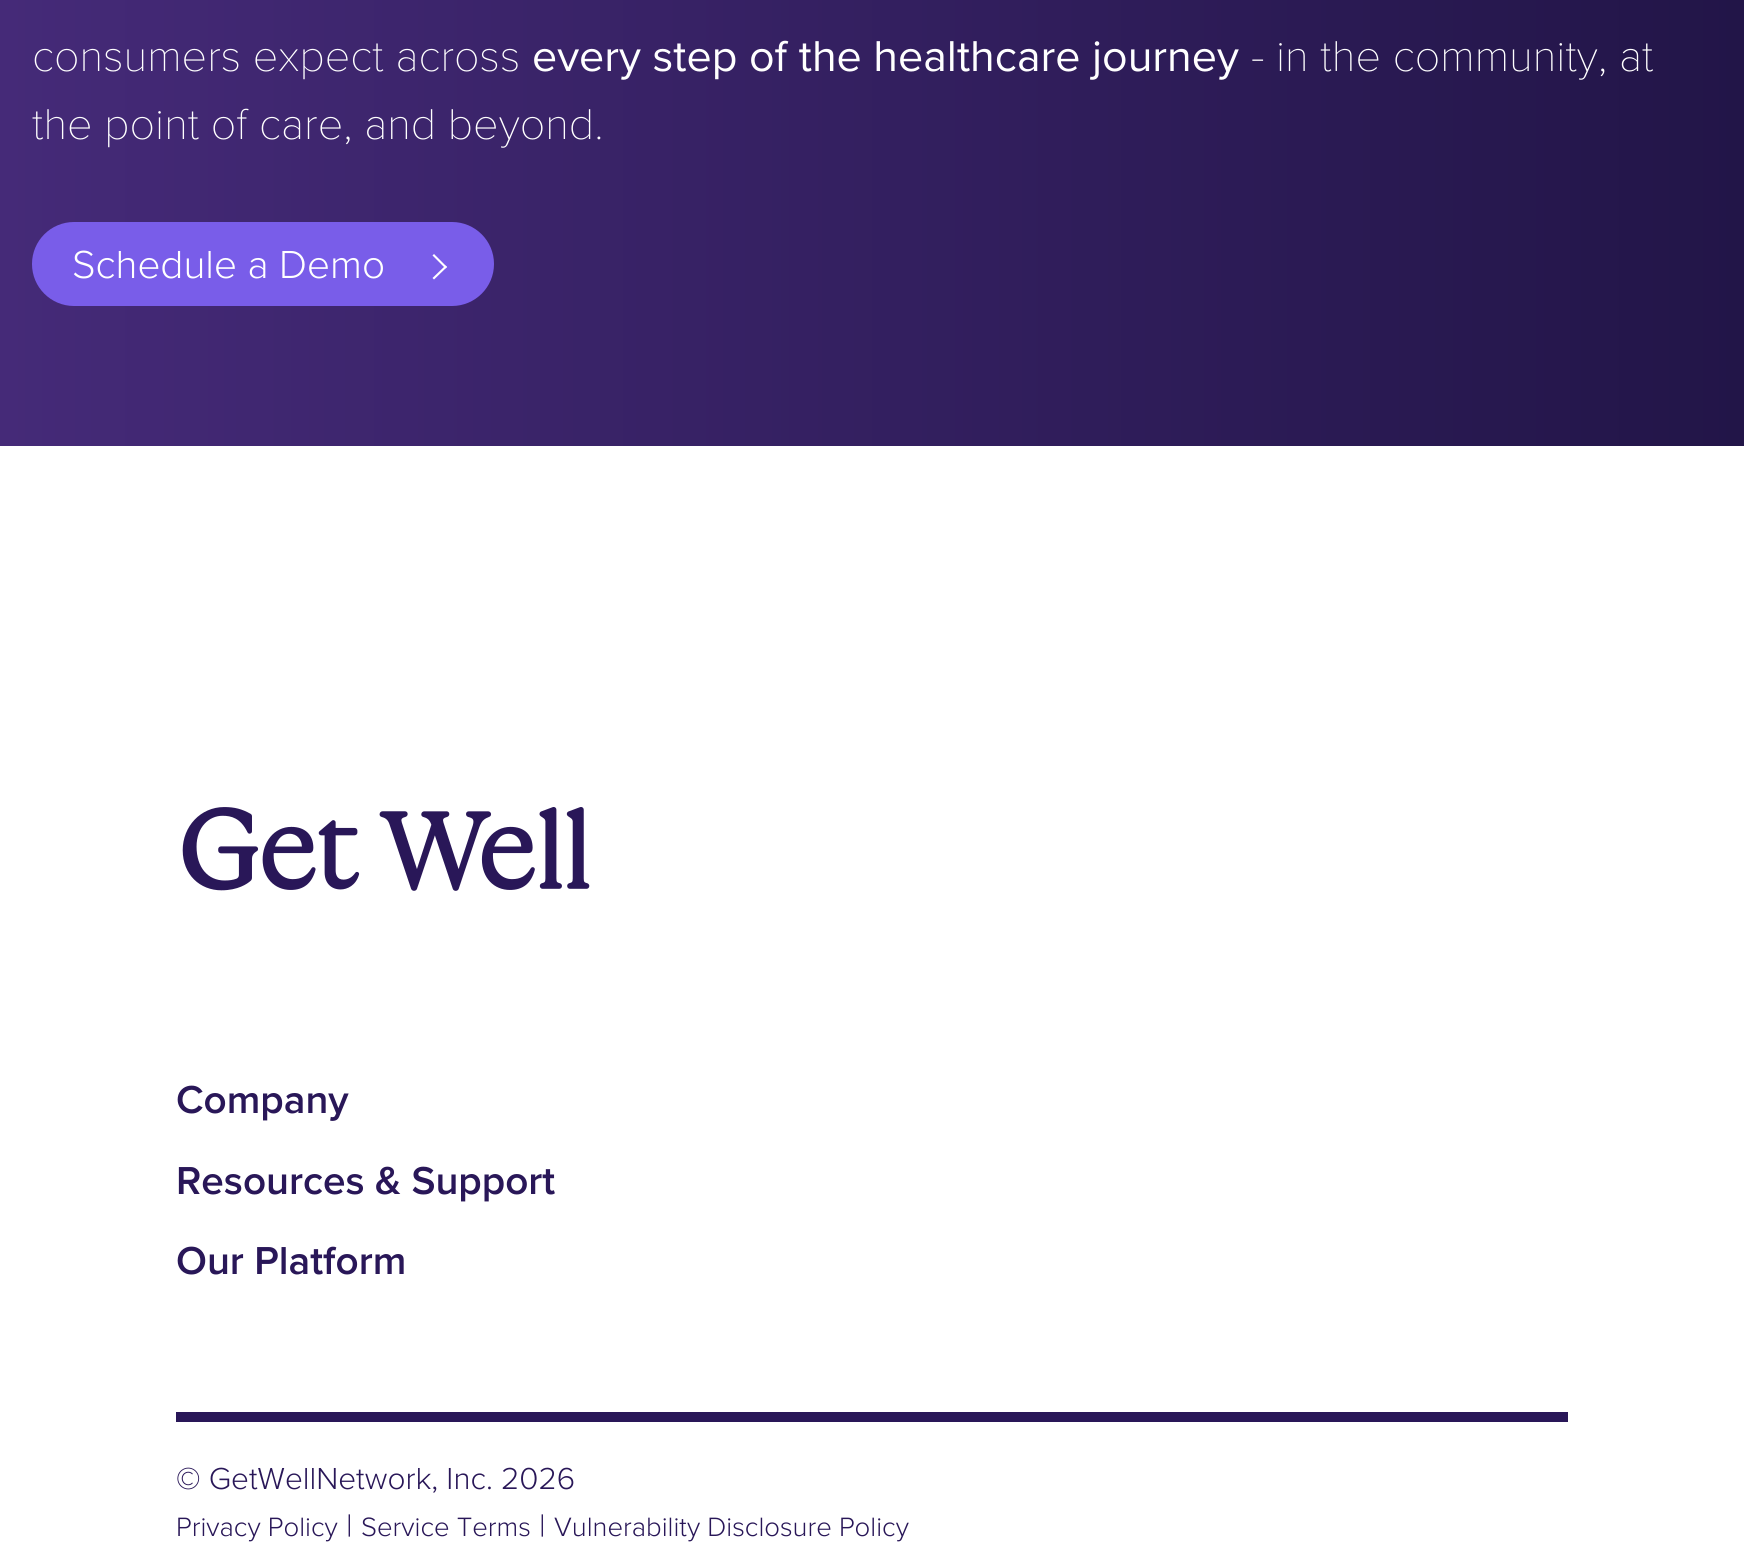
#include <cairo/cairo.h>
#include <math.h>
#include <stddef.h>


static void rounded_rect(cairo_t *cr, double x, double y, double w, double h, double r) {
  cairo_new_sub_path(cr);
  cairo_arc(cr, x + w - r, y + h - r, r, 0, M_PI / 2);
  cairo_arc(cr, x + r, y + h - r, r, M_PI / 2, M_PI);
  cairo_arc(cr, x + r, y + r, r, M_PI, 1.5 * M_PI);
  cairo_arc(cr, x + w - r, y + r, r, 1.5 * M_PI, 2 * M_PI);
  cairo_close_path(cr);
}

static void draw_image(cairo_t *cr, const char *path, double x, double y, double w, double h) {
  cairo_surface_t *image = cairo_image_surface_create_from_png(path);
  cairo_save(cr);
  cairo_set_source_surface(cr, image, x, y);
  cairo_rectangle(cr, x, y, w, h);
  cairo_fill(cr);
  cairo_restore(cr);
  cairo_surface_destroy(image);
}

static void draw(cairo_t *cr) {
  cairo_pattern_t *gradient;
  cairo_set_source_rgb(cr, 1, 1, 1);
  cairo_paint(cr);
  gradient = cairo_pattern_create_linear(0, -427, 1744, -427);
  cairo_pattern_add_color_stop_rgba(gradient, 0, 69 / 255.0, 42 / 255.0, 120 / 255.0, 1);
  cairo_pattern_add_color_stop_rgba(gradient, 1, 34 / 255.0, 21 / 255.0, 72 / 255.0, 1);
  cairo_set_source(cr, gradient);
  cairo_pattern_destroy(gradient);
  cairo_rectangle(cr, 0, 0, 1744, 446);
  cairo_fill(cr);
  cairo_set_source_rgb(cr, 121 / 255.0, 93 / 255.0, 233 / 255.0);
  rounded_rect(cr, 32, 222, 462, 84, 42);
  cairo_fill(cr);
  cairo_set_source_rgb(cr, 1, 1, 1);
  cairo_new_path(cr);
  cairo_move_to(cr, 434, 254);
  cairo_line_to(cr, 447, 267);
  cairo_line_to(cr, 445.5, 268.5);
  cairo_line_to(cr, 432.5, 255.5);
  cairo_close_path(cr);
  cairo_fill(cr);
  cairo_new_path(cr);
  cairo_move_to(cr, 445.5, 265.5);
  cairo_line_to(cr, 447, 267);
  cairo_line_to(cr, 434, 279.5);
  cairo_line_to(cr, 432.5, 278);
  cairo_close_path(cr);
  cairo_fill(cr);
  draw_image(cr, "images/1.png", 182, 807, 408, 84);
  cairo_set_source_rgb(cr, 41 / 255.0, 23 / 255.0, 88 / 255.0);
  cairo_rectangle(cr, 176, 1412, 1392, 10);
  cairo_fill(cr);
  cairo_select_font_face(cr, "Proxima Nova Thin", CAIRO_FONT_SLANT_NORMAL, CAIRO_FONT_WEIGHT_NORMAL);
  cairo_set_font_size(cr, 44.75);
  cairo_set_source_rgb(cr, 1, 1, 1);
  cairo_move_to(cr, 32, 71);
  cairo_show_text(cr, "consumers expect across");
  cairo_select_font_face(cr, "Proxima Nova", CAIRO_FONT_SLANT_NORMAL, CAIRO_FONT_WEIGHT_NORMAL);
  cairo_move_to(cr, 532, 71);
  cairo_show_text(cr, "every step of the healthcare journey");
  cairo_select_font_face(cr, "Proxima Nova Thin", CAIRO_FONT_SLANT_NORMAL, CAIRO_FONT_WEIGHT_NORMAL);
  cairo_move_to(cr, 1251, 71);
  cairo_show_text(cr, "- in the community, at");
  cairo_move_to(cr, 32, 139);
  cairo_show_text(cr, "the point of care, and beyond.");
  cairo_select_font_face(cr, "Proxima Nova Light", CAIRO_FONT_SLANT_NORMAL, CAIRO_FONT_WEIGHT_NORMAL);
  cairo_set_font_size(cr, 40.5);
  cairo_move_to(cr, 72, 278);
  cairo_show_text(cr, "Schedule a Demo");
  cairo_select_font_face(cr, "Proxima Nova SemiBold", CAIRO_FONT_SLANT_NORMAL, CAIRO_FONT_WEIGHT_NORMAL);
  cairo_set_font_size(cr, 40.4);
  cairo_set_source_rgb(cr, 41 / 255.0, 23 / 255.0, 88 / 255.0);
  cairo_move_to(cr, 176, 1113);
  cairo_show_text(cr, "Company");
  cairo_move_to(cr, 176, 1194);
  cairo_show_text(cr, "Resources & Support");
  cairo_move_to(cr, 176, 1274);
  cairo_show_text(cr, "Our Platform");
  cairo_select_font_face(cr, "Proxima Nova Light", CAIRO_FONT_SLANT_NORMAL, CAIRO_FONT_WEIGHT_NORMAL);
  cairo_set_font_size(cr, 31.5);
  cairo_move_to(cr, 176, 1489);
  cairo_show_text(cr, "© GetWellNetwork, Inc. 2026");
  cairo_set_font_size(cr, 27.5);
  cairo_move_to(cr, 176, 1536);
  cairo_show_text(cr, "Privacy Policy");
  cairo_set_font_size(cr, 31.5);
  cairo_move_to(cr, 346, 1536);
  cairo_show_text(cr, "|");
  cairo_set_font_size(cr, 27.5);
  cairo_move_to(cr, 361, 1536);
  cairo_show_text(cr, "Service Terms");
  cairo_set_font_size(cr, 31.5);
  cairo_move_to(cr, 539, 1536);
  cairo_show_text(cr, "|");
  cairo_set_font_size(cr, 27.5);
  cairo_move_to(cr, 554, 1536);
  cairo_show_text(cr, "Vulnerability Disclosure Policy");
}

int main(void) {
  cairo_surface_t *surface = cairo_image_surface_create(CAIRO_FORMAT_RGB24, 1744, 1550);
  cairo_t *cr = cairo_create(surface);
  cairo_font_options_t *options = cairo_font_options_create();
  cairo_font_options_set_hint_metrics(options, CAIRO_HINT_METRICS_OFF);
  cairo_font_options_set_hint_style(options, CAIRO_HINT_STYLE_NONE);
  cairo_set_font_options(cr, options);
  cairo_set_miter_limit(cr, 4);
  draw(cr);
  cairo_surface_write_to_png(surface, "out.png");
  cairo_font_options_destroy(options);
  cairo_destroy(cr);
  cairo_surface_destroy(surface);
  return 0;
}
